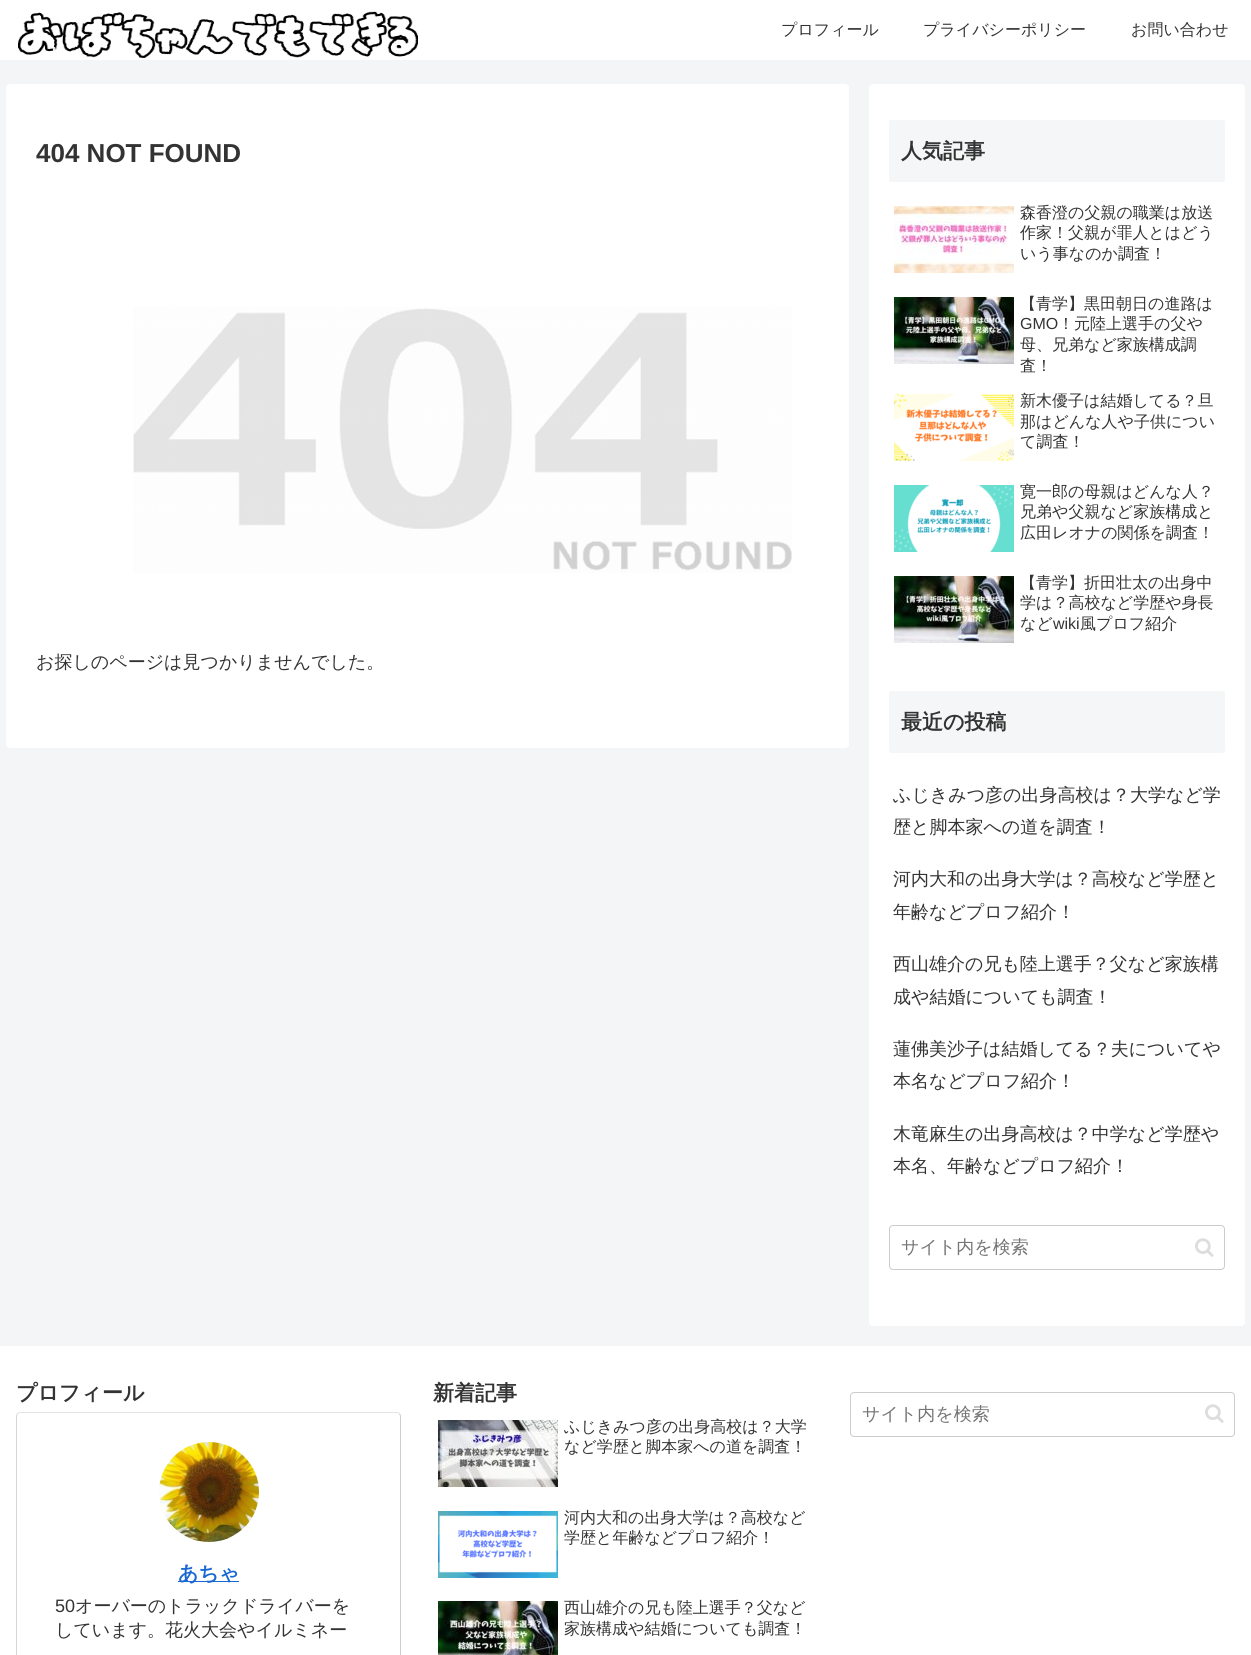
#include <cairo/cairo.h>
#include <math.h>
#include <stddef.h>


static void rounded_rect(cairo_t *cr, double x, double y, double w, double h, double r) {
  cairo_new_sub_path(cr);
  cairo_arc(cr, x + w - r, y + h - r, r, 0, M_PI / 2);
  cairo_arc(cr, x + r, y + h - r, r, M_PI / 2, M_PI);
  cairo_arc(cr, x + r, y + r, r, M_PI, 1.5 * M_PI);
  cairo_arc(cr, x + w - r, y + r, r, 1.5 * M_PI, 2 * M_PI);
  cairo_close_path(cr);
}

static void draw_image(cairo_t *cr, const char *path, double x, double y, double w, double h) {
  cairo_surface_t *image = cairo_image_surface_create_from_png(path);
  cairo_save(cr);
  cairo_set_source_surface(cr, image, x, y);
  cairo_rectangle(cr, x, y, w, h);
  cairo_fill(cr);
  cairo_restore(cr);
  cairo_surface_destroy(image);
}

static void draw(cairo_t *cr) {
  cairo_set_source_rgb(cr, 244 / 255.0, 245 / 255.0, 247 / 255.0);
  cairo_paint(cr);
  cairo_set_source_rgb(cr, 1, 1, 1);
  cairo_rectangle(cr, 0, 0, 1251, 60);
  cairo_fill(cr);
  draw_image(cr, "images/1.png", 18, 11, 400, 47);
  rounded_rect(cr, 6, 84, 843, 664, 4);
  cairo_fill(cr);
  draw_image(cr, "images/2.png", 133, 307, 659, 266);
  rounded_rect(cr, 869, 84, 376, 1242, 4);
  cairo_fill(cr);
  cairo_set_source_rgb(cr, 245 / 255.0, 246 / 255.0, 247 / 255.0);
  rounded_rect(cr, 889, 120, 336, 62, 2);
  cairo_fill(cr);
  draw_image(cr, "images/3.png", 894, 206, 120, 67);
  draw_image(cr, "images/4.png", 894, 297, 120, 67);
  draw_image(cr, "images/5.png", 894, 394, 120, 67);
  draw_image(cr, "images/6.png", 894, 485, 120, 67);
  draw_image(cr, "images/7.png", 894, 576, 120, 67);
  rounded_rect(cr, 889, 691, 336, 62, 2);
  cairo_fill(cr);
  rounded_rect(cr, 889.5, 1225.5, 335, 44, 3.5);
  cairo_set_source_rgb(cr, 204 / 255.0, 204 / 255.0, 204 / 255.0);
  cairo_set_line_width(cr, 1);
  cairo_stroke(cr);
  draw_image(cr, "images/8.png", 1195, 1238, 19, 19);
  cairo_set_source_rgb(cr, 1, 1, 1);
  cairo_rectangle(cr, 0, 1346, 1251, 309);
  cairo_fill(cr);
  cairo_new_path(cr);
  cairo_move_to(cr, 17.5, 1413.5);
  cairo_line_to(cr, 20, 1412.5);
  cairo_line_to(cr, 397.5, 1412.5);
  cairo_line_to(cr, 399.5, 1413.5);
  cairo_set_source_rgb(cr, 227 / 255.0, 227 / 255.0, 227 / 255.0);
  cairo_stroke(cr);
  cairo_new_path(cr);
  cairo_move_to(cr, 399.5, 1413.5);
  cairo_line_to(cr, 400.5, 1416);
  cairo_line_to(cr, 400.5, 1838);
  cairo_line_to(cr, 399.5, 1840.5);
  cairo_set_source_rgb(cr, 206 / 255.0, 206 / 255.0, 206 / 255.0);
  cairo_stroke(cr);
  cairo_new_path(cr);
  cairo_move_to(cr, 17.5, 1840.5);
  cairo_line_to(cr, 16.5, 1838);
  cairo_line_to(cr, 16.5, 1416);
  cairo_line_to(cr, 17.5, 1413.5);
  cairo_set_source_rgb(cr, 214 / 255.0, 214 / 255.0, 214 / 255.0);
  cairo_stroke(cr);
  draw_image(cr, "images/9.png", 159, 1442, 100, 100);
  cairo_set_source_rgb(cr, 25 / 255.0, 103 / 255.0, 210 / 255.0);
  cairo_rectangle(cr, 178, 1581, 61, 1);
  cairo_fill(cr);
  draw_image(cr, "images/10.png", 438, 1420, 120, 67);
  draw_image(cr, "images/11.png", 438, 1511, 120, 67);
  draw_image(cr, "images/12.png", 438, 1601, 120, 54);
  rounded_rect(cr, 850.5, 1392.5, 384, 44, 3.5);
  cairo_set_source_rgb(cr, 204 / 255.0, 204 / 255.0, 204 / 255.0);
  cairo_stroke(cr);
  draw_image(cr, "images/8.png", 1205, 1404, 19, 19);
  cairo_select_font_face(cr, "WenQuanYi Zen Hei Medium", CAIRO_FONT_SLANT_NORMAL, CAIRO_FONT_WEIGHT_NORMAL);
  cairo_set_font_size(cr, 16);
  cairo_set_source_rgb(cr, 51 / 255.0, 51 / 255.0, 51 / 255.0);
  cairo_move_to(cr, 781, 35);
  cairo_show_text(cr, "プロフィール");
  cairo_move_to(cr, 923, 35);
  cairo_show_text(cr, "プライバシーポリシー");
  cairo_move_to(cr, 1131, 35);
  cairo_show_text(cr, "お問い合わせ");
  cairo_select_font_face(cr, "Liberation Sans", CAIRO_FONT_SLANT_NORMAL, CAIRO_FONT_WEIGHT_BOLD);
  cairo_set_font_size(cr, 26);
  cairo_move_to(cr, 36, 162);
  cairo_show_text(cr, "404 NOT FOUND");
  cairo_select_font_face(cr, "WenQuanYi Zen Hei Medium", CAIRO_FONT_SLANT_NORMAL, CAIRO_FONT_WEIGHT_NORMAL);
  cairo_set_font_size(cr, 18);
  cairo_move_to(cr, 36, 668);
  cairo_show_text(cr, "お探しのページは見つかりませんでした。");
  cairo_select_font_face(cr, "WenQuanYi Zen Hei", CAIRO_FONT_SLANT_NORMAL, CAIRO_FONT_WEIGHT_BOLD);
  cairo_set_font_size(cr, 21);
  cairo_move_to(cr, 901, 158);
  cairo_show_text(cr, "人気記事");
  cairo_select_font_face(cr, "WenQuanYi Zen Hei Medium", CAIRO_FONT_SLANT_NORMAL, CAIRO_FONT_WEIGHT_NORMAL);
  cairo_set_font_size(cr, 16);
  cairo_move_to(cr, 1020, 218);
  cairo_show_text(cr, "森香澄の父親の職業は放送");
  cairo_move_to(cr, 1020, 238);
  cairo_show_text(cr, "作家！父親が罪人とはどう");
  cairo_move_to(cr, 1020, 259);
  cairo_show_text(cr, "いう事なのか調査！");
  cairo_move_to(cr, 1020, 309);
  cairo_show_text(cr, "【青学】黒田朝日の進路は");
  cairo_select_font_face(cr, "Liberation Sans", CAIRO_FONT_SLANT_NORMAL, CAIRO_FONT_WEIGHT_NORMAL);
  cairo_move_to(cr, 1020, 329);
  cairo_show_text(cr, "GMO");
  cairo_select_font_face(cr, "WenQuanYi Zen Hei Medium", CAIRO_FONT_SLANT_NORMAL, CAIRO_FONT_WEIGHT_NORMAL);
  cairo_move_to(cr, 1058, 329);
  cairo_show_text(cr, "！元陸上選手の父や");
  cairo_move_to(cr, 1020, 350);
  cairo_show_text(cr, "母、兄弟など家族構成調");
  cairo_move_to(cr, 1020, 371);
  cairo_show_text(cr, "査！");
  cairo_move_to(cr, 1020, 406);
  cairo_show_text(cr, "新木優子は結婚してる？旦");
  cairo_move_to(cr, 1020, 427);
  cairo_show_text(cr, "那はどんな人や子供につい");
  cairo_move_to(cr, 1020, 447);
  cairo_show_text(cr, "て調査！");
  cairo_move_to(cr, 1020, 497);
  cairo_show_text(cr, "寛一郎の母親はどんな人？");
  cairo_move_to(cr, 1020, 517);
  cairo_show_text(cr, "兄弟や父親など家族構成と");
  cairo_move_to(cr, 1020, 538);
  cairo_show_text(cr, "広田レオナの関係を調査！");
  cairo_move_to(cr, 1020, 588);
  cairo_show_text(cr, "【青学】折田壮太の出身中");
  cairo_move_to(cr, 1020, 608);
  cairo_show_text(cr, "学は？高校など学歴や身長");
  cairo_move_to(cr, 1020, 629);
  cairo_show_text(cr, "など");
  cairo_select_font_face(cr, "Liberation Sans", CAIRO_FONT_SLANT_NORMAL, CAIRO_FONT_WEIGHT_NORMAL);
  cairo_move_to(cr, 1053, 629);
  cairo_show_text(cr, "wiki");
  cairo_select_font_face(cr, "WenQuanYi Zen Hei Medium", CAIRO_FONT_SLANT_NORMAL, CAIRO_FONT_WEIGHT_NORMAL);
  cairo_move_to(cr, 1080, 629);
  cairo_show_text(cr, "風プロフ紹介");
  cairo_select_font_face(cr, "WenQuanYi Zen Hei", CAIRO_FONT_SLANT_NORMAL, CAIRO_FONT_WEIGHT_BOLD);
  cairo_set_font_size(cr, 21);
  cairo_move_to(cr, 901, 729);
  cairo_show_text(cr, "最近の投稿");
  cairo_select_font_face(cr, "WenQuanYi Zen Hei Medium", CAIRO_FONT_SLANT_NORMAL, CAIRO_FONT_WEIGHT_NORMAL);
  cairo_set_font_size(cr, 18);
  cairo_move_to(cr, 893, 801);
  cairo_show_text(cr, "ふじきみつ彦の出身高校は？大学など学");
  cairo_move_to(cr, 893, 833);
  cairo_show_text(cr, "歴と脚本家への道を調査！");
  cairo_move_to(cr, 893, 885);
  cairo_show_text(cr, "河内大和の出身大学は？高校など学歴と");
  cairo_move_to(cr, 893, 918);
  cairo_show_text(cr, "年齢などプロフ紹介！");
  cairo_move_to(cr, 893, 970);
  cairo_show_text(cr, "西山雄介の兄も陸上選手？父など家族構");
  cairo_move_to(cr, 893, 1003);
  cairo_show_text(cr, "成や結婚についても調査！");
  cairo_move_to(cr, 893, 1055);
  cairo_show_text(cr, "蓮佛美沙子は結婚してる？夫についてや");
  cairo_move_to(cr, 893, 1087);
  cairo_show_text(cr, "本名などプロフ紹介！");
  cairo_move_to(cr, 893, 1140);
  cairo_show_text(cr, "木竜麻生の出身高校は？中学など学歴や");
  cairo_move_to(cr, 893, 1172);
  cairo_show_text(cr, "本名、年齢などプロフ紹介！");
  cairo_set_source_rgb(cr, 117 / 255.0, 117 / 255.0, 117 / 255.0);
  cairo_move_to(cr, 901, 1253);
  cairo_show_text(cr, "サイト内を検索");
  cairo_select_font_face(cr, "WenQuanYi Zen Hei", CAIRO_FONT_SLANT_NORMAL, CAIRO_FONT_WEIGHT_BOLD);
  cairo_set_font_size(cr, 21);
  cairo_set_source_rgb(cr, 51 / 255.0, 51 / 255.0, 51 / 255.0);
  cairo_move_to(cr, 16, 1400);
  cairo_show_text(cr, "プロフィール");
  cairo_set_font_size(cr, 20);
  cairo_set_source_rgb(cr, 25 / 255.0, 103 / 255.0, 210 / 255.0);
  cairo_move_to(cr, 178, 1580);
  cairo_show_text(cr, "あちゃ");
  cairo_select_font_face(cr, "Liberation Sans", CAIRO_FONT_SLANT_NORMAL, CAIRO_FONT_WEIGHT_NORMAL);
  cairo_set_font_size(cr, 18);
  cairo_set_source_rgb(cr, 51 / 255.0, 51 / 255.0, 51 / 255.0);
  cairo_move_to(cr, 55, 1612);
  cairo_show_text(cr, "50");
  cairo_select_font_face(cr, "WenQuanYi Zen Hei Medium", CAIRO_FONT_SLANT_NORMAL, CAIRO_FONT_WEIGHT_NORMAL);
  cairo_move_to(cr, 75, 1612);
  cairo_show_text(cr, "オーバーのトラックドライバーを");
  cairo_move_to(cr, 55, 1636);
  cairo_show_text(cr, "しています。花火大会やイルミネー");
  cairo_select_font_face(cr, "WenQuanYi Zen Hei", CAIRO_FONT_SLANT_NORMAL, CAIRO_FONT_WEIGHT_BOLD);
  cairo_set_font_size(cr, 21);
  cairo_move_to(cr, 433, 1400);
  cairo_show_text(cr, "新着記事");
  cairo_select_font_face(cr, "WenQuanYi Zen Hei Medium", CAIRO_FONT_SLANT_NORMAL, CAIRO_FONT_WEIGHT_NORMAL);
  cairo_set_font_size(cr, 16);
  cairo_move_to(cr, 564, 1432);
  cairo_show_text(cr, "ふじきみつ彦の出身高校は？大学");
  cairo_move_to(cr, 564, 1452);
  cairo_show_text(cr, "など学歴と脚本家への道を調査！");
  cairo_move_to(cr, 564, 1523);
  cairo_show_text(cr, "河内大和の出身大学は？高校など");
  cairo_move_to(cr, 564, 1543);
  cairo_show_text(cr, "学歴と年齢などプロフ紹介！");
  cairo_move_to(cr, 564, 1613);
  cairo_show_text(cr, "西山雄介の兄も陸上選手？父など");
  cairo_move_to(cr, 564, 1634);
  cairo_show_text(cr, "家族構成や結婚についても調査！");
  cairo_set_font_size(cr, 18);
  cairo_set_source_rgb(cr, 117 / 255.0, 117 / 255.0, 117 / 255.0);
  cairo_move_to(cr, 862, 1420);
  cairo_show_text(cr, "サイト内を検索");
}

int main(void) {
  cairo_surface_t *surface = cairo_image_surface_create(CAIRO_FORMAT_RGB24, 1251, 1655);
  cairo_t *cr = cairo_create(surface);
  cairo_font_options_t *options = cairo_font_options_create();
  cairo_font_options_set_hint_metrics(options, CAIRO_HINT_METRICS_OFF);
  cairo_font_options_set_hint_style(options, CAIRO_HINT_STYLE_NONE);
  cairo_set_font_options(cr, options);
  cairo_set_miter_limit(cr, 4);
  draw(cr);
  cairo_surface_write_to_png(surface, "out.png");
  cairo_font_options_destroy(options);
  cairo_destroy(cr);
  cairo_surface_destroy(surface);
  return 0;
}
